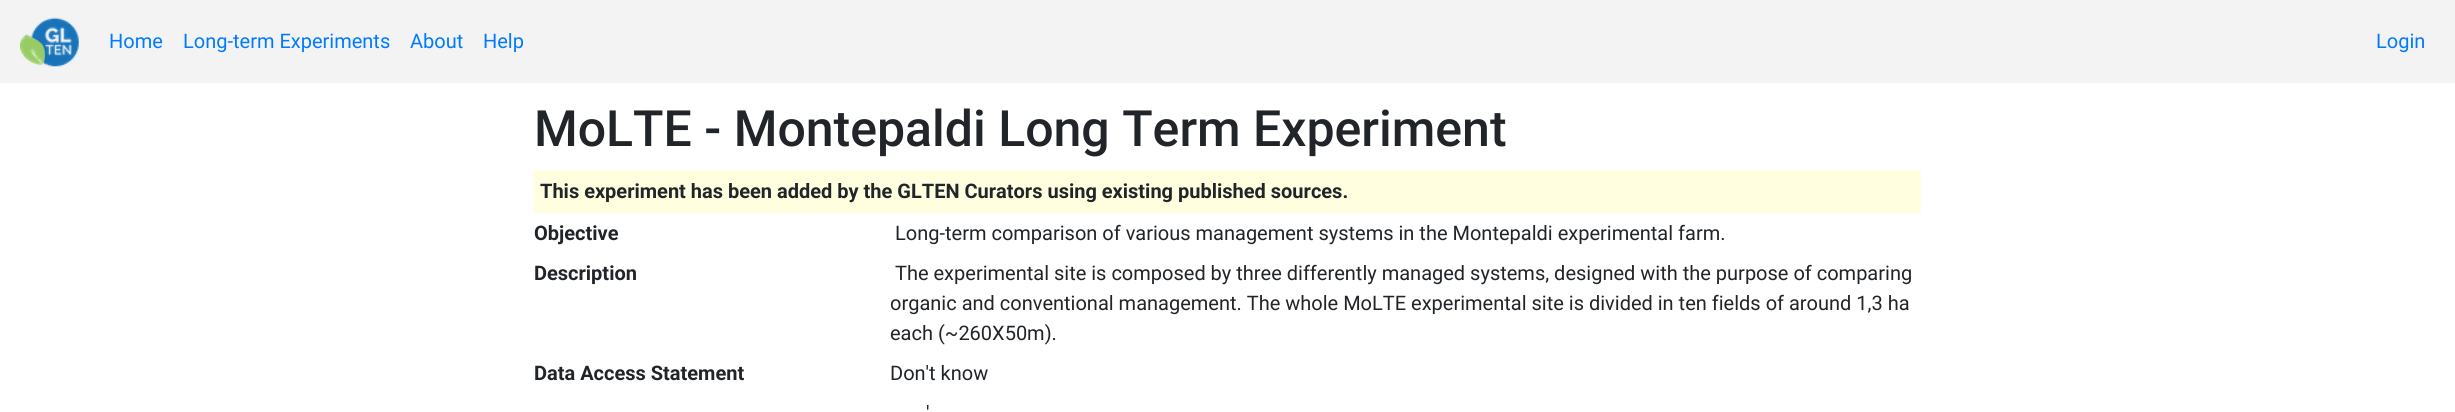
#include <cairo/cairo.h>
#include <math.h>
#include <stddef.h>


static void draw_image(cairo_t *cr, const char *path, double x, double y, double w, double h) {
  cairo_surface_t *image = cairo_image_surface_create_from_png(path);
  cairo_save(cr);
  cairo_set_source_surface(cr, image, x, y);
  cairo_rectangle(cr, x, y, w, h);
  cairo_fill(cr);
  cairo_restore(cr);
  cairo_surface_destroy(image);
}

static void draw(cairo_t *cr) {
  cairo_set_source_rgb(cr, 1, 1, 1);
  cairo_paint(cr);
  cairo_set_source_rgb(cr, 243 / 255.0, 243 / 255.0, 243 / 255.0);
  cairo_rectangle(cr, 0, 0, 2455, 83);
  cairo_fill(cr);
  draw_image(cr, "images/1.png", 20, 17, 59, 50);
  cairo_set_source_rgb(cr, 1, 1, 224 / 255.0);
  cairo_rectangle(cr, 534, 170, 1387, 43);
  cairo_fill(cr);
  cairo_select_font_face(cr, "Roboto", CAIRO_FONT_SLANT_NORMAL, CAIRO_FONT_WEIGHT_NORMAL);
  cairo_set_font_size(cr, 20);
  cairo_set_source_rgb(cr, 0, 123 / 255.0, 1);
  cairo_move_to(cr, 109, 48);
  cairo_show_text(cr, "Home");
  cairo_move_to(cr, 183, 48);
  cairo_show_text(cr, "Long-term Experiments");
  cairo_move_to(cr, 410, 48);
  cairo_show_text(cr, "About");
  cairo_move_to(cr, 483, 48);
  cairo_show_text(cr, "Help");
  cairo_move_to(cr, 2376, 48);
  cairo_show_text(cr, "Login");
  cairo_select_font_face(cr, "Roboto Medium", CAIRO_FONT_SLANT_NORMAL, CAIRO_FONT_WEIGHT_NORMAL);
  cairo_set_font_size(cr, 50);
  cairo_set_source_rgb(cr, 33 / 255.0, 37 / 255.0, 41 / 255.0);
  cairo_move_to(cr, 534, 146);
  cairo_show_text(cr, "MoLTE - Montepaldi Long Term Experiment");
  cairo_select_font_face(cr, "Roboto", CAIRO_FONT_SLANT_NORMAL, CAIRO_FONT_WEIGHT_BOLD);
  cairo_set_font_size(cr, 20);
  cairo_move_to(cr, 540, 198);
  cairo_show_text(cr, "This experiment has been added by the GLTEN Curators using existing published sources.");
  cairo_move_to(cr, 534, 240);
  cairo_show_text(cr, "Objective");
  cairo_select_font_face(cr, "Roboto", CAIRO_FONT_SLANT_NORMAL, CAIRO_FONT_WEIGHT_NORMAL);
  cairo_move_to(cr, 895, 240);
  cairo_show_text(cr, "Long-term comparison of various management systems in the Montepaldi experimental farm.");
  cairo_select_font_face(cr, "Roboto", CAIRO_FONT_SLANT_NORMAL, CAIRO_FONT_WEIGHT_BOLD);
  cairo_move_to(cr, 534, 280);
  cairo_show_text(cr, "Description");
  cairo_select_font_face(cr, "Roboto", CAIRO_FONT_SLANT_NORMAL, CAIRO_FONT_WEIGHT_NORMAL);
  cairo_move_to(cr, 895, 280);
  cairo_show_text(cr, "The experimental site is composed by three differently managed systems, designed with the purpose of comparing");
  cairo_move_to(cr, 890, 310);
  cairo_show_text(cr, "organic and conventional management. The whole MoLTE experimental site is divided in ten fields of around 1,3 ha");
  cairo_move_to(cr, 890, 340);
  cairo_show_text(cr, "each (~260X50m).");
  cairo_select_font_face(cr, "Roboto", CAIRO_FONT_SLANT_NORMAL, CAIRO_FONT_WEIGHT_BOLD);
  cairo_move_to(cr, 534, 380);
  cairo_show_text(cr, "Data Access Statement");
  cairo_select_font_face(cr, "Roboto", CAIRO_FONT_SLANT_NORMAL, CAIRO_FONT_WEIGHT_NORMAL);
  cairo_move_to(cr, 890, 380);
  cairo_show_text(cr, "Don't know");
  cairo_move_to(cr, 926, 420);
  cairo_show_text(cr, "'");
}

int main(void) {
  cairo_surface_t *surface = cairo_image_surface_create(CAIRO_FORMAT_RGB24, 2455, 412);
  cairo_t *cr = cairo_create(surface);
  cairo_font_options_t *options = cairo_font_options_create();
  cairo_font_options_set_hint_metrics(options, CAIRO_HINT_METRICS_OFF);
  cairo_font_options_set_hint_style(options, CAIRO_HINT_STYLE_NONE);
  cairo_set_font_options(cr, options);
  cairo_set_miter_limit(cr, 4);
  draw(cr);
  cairo_surface_write_to_png(surface, "out.png");
  cairo_font_options_destroy(options);
  cairo_destroy(cr);
  cairo_surface_destroy(surface);
  return 0;
}
